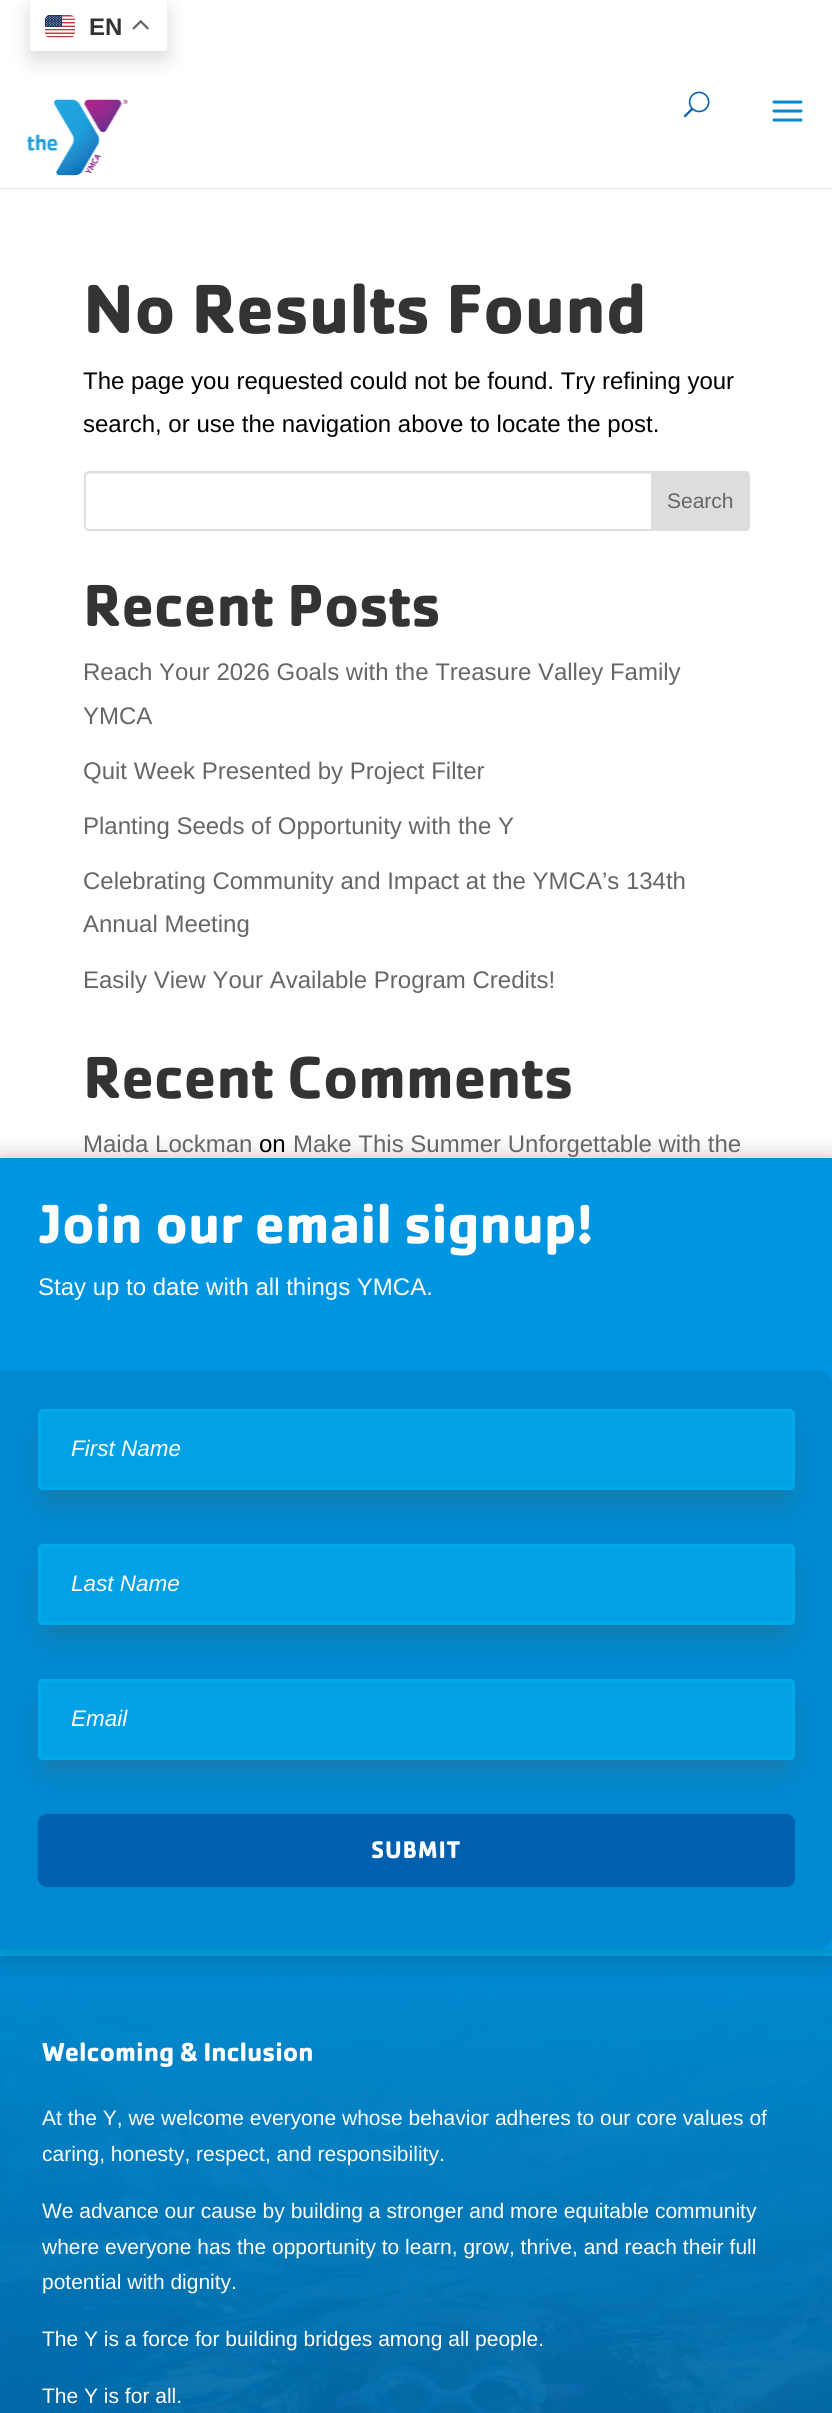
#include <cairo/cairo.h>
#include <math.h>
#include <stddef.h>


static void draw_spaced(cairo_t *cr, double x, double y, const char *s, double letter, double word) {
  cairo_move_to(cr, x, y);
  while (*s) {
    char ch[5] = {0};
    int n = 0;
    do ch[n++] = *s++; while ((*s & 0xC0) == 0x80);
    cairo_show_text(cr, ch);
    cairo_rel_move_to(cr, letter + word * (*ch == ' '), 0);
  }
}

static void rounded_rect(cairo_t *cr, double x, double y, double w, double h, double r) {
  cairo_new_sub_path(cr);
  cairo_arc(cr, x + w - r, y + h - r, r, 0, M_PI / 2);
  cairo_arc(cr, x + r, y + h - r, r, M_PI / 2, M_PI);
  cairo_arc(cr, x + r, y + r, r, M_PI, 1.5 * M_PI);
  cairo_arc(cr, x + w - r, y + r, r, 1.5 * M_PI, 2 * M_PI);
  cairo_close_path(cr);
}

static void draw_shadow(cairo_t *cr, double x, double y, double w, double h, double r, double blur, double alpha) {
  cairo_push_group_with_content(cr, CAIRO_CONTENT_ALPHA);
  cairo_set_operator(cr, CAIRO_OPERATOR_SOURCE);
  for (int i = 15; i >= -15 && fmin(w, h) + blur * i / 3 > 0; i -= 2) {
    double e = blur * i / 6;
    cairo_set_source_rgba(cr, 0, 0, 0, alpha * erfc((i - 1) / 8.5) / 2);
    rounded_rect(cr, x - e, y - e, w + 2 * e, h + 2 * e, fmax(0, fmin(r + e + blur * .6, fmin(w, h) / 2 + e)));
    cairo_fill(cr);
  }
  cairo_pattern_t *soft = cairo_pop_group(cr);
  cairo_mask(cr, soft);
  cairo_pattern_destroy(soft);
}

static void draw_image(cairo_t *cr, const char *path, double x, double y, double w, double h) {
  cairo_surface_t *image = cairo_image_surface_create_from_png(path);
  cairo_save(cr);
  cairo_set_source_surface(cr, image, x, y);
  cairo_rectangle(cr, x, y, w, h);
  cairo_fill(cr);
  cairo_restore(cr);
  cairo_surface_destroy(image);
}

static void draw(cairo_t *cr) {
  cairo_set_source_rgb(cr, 1, 1, 1);
  cairo_paint(cr);
  cairo_set_source_rgb(cr, 0, 0, 0);
  draw_shadow(cr, 30, 8, 137, 51, 3, 11, 0.15);
  cairo_set_source_rgb(cr, 1, 1, 1);
  rounded_rect(cr, 30, 0, 137, 51, 3);
  cairo_fill(cr);
  draw_image(cr, "images/1.png", 45, 15, 30, 23);
  draw_image(cr, "images/2.png", 132, 20, 17, 10);
  cairo_set_source_rgb(cr, 230 / 255.0, 230 / 255.0, 230 / 255.0);
  cairo_new_path(cr);
  cairo_move_to(cr, 0, 188);
  cairo_line_to(cr, 0, 189);
  cairo_line_to(cr, 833, 189);
  cairo_line_to(cr, 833, 2);
  cairo_line_to(cr, 832, 2);
  cairo_line_to(cr, 832, 188);
  cairo_close_path(cr);
  cairo_fill(cr);
  draw_image(cr, "images/3.png", 26, 99, 102, 77);
  draw_image(cr, "images/4.png", 683, 91, 27, 27);
  draw_image(cr, "images/5.png", 772, 100, 31, 22);
  cairo_set_source_rgb(cr, 236 / 255.0, 236 / 255.0, 236 / 255.0);
  cairo_new_path(cr);
  cairo_move_to(cr, 88, 474);
  cairo_line_to(cr, 746, 474);
  cairo_curve_to(cr, 747, 474, 748, 475, 748, 477);
  cairo_line_to(cr, 748, 529);
  cairo_curve_to(cr, 749, 529, 749, 528, 749, 527);
  cairo_line_to(cr, 749, 476);
  cairo_curve_to(cr, 749, 474, 748, 473, 746, 473);
  cairo_line_to(cr, 89, 473);
  cairo_curve_to(cr, 87, 473, 86, 474, 86, 476);
  cairo_line_to(cr, 86, 477);
  cairo_curve_to(cr, 86, 475, 87, 474, 88, 474);
  cairo_close_path(cr);
  cairo_fill(cr);
  rounded_rect(cr, 85, 472, 664, 58, 4);
  cairo_set_source_rgb(cr, 221 / 255.0, 221 / 255.0, 221 / 255.0);
  cairo_stroke(cr);
  cairo_new_path(cr);
  cairo_move_to(cr, 652, 472);
  cairo_line_to(cr, 745, 472);
  cairo_curve_to(cr, 747, 472, 749, 474, 749, 476);
  cairo_line_to(cr, 749, 526);
  cairo_curve_to(cr, 749, 528, 747, 530, 745, 530);
  cairo_line_to(cr, 652, 530);
  cairo_close_path(cr);
  cairo_fill_preserve(cr);
  cairo_stroke(cr);
  draw_image(cr, "images/6.png", 0, 1956, 832, 457);
  cairo_set_source_rgb(cr, 0, 174 / 255.0, 239 / 255.0);
  cairo_rectangle(cr, 0, 1949, 832, 7);
  cairo_fill(cr);
  cairo_set_source_rgb(cr, 0, 0, 0);
  draw_shadow(cr, 0, 1161, 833, 791, 0, 13.5, 0.3);
  cairo_set_source_rgb(cr, 0, 149 / 255.0, 224 / 255.0);
  cairo_rectangle(cr, 0, 1158, 832, 791);
  cairo_fill(cr);
  cairo_set_source_rgb(cr, 0, 137 / 255.0, 208 / 255.0);
  cairo_new_path(cr);
  cairo_move_to(cr, 0, 1371);
  cairo_line_to(cr, 818, 1371);
  cairo_curve_to(cr, 826.5, 1371, 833, 1377.5, 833, 1386);
  cairo_line_to(cr, 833, 1934);
  cairo_curve_to(cr, 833, 1942.5, 826.5, 1949, 818, 1949);
  cairo_line_to(cr, 0, 1949);
  cairo_close_path(cr);
  cairo_fill(cr);
  cairo_save(cr);
  cairo_set_fill_rule(cr, CAIRO_FILL_RULE_EVEN_ODD);
  cairo_new_path(cr);
  cairo_move_to(cr, 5, 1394);
  cairo_line_to(cr, 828, 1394);
  cairo_line_to(cr, 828, 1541);
  cairo_line_to(cr, 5, 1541);
  cairo_close_path(cr);
  cairo_move_to(cr, 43, 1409);
  cairo_line_to(cr, 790, 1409);
  cairo_curve_to(cr, 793, 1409, 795, 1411, 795, 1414);
  cairo_line_to(cr, 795, 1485);
  cairo_curve_to(cr, 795, 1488, 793, 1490, 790, 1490);
  cairo_line_to(cr, 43, 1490);
  cairo_curve_to(cr, 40, 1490, 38, 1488, 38, 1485);
  cairo_line_to(cr, 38, 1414);
  cairo_curve_to(cr, 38, 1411, 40, 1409, 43, 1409);
  cairo_close_path(cr);
  cairo_clip(cr);
  cairo_set_source_rgb(cr, 85 / 255.0, 85 / 255.0, 85 / 255.0);
  draw_shadow(cr, 47, 1436, 739, 63, 0, 13.5, 0.32);
  cairo_restore(cr);
  cairo_set_source_rgba(cr, 0, 174 / 255.0, 239 / 255.0, 0.67);
  rounded_rect(cr, 38, 1409, 757, 81, 5);
  cairo_fill(cr);
  rounded_rect(cr, 39.5, 1410.5, 754, 78, 3.5);
  cairo_set_source_rgba(cr, 0, 175 / 255.0, 239 / 255.0, 0.49);
  cairo_set_line_width(cr, 3);
  cairo_stroke(cr);
  cairo_save(cr);
  cairo_set_fill_rule(cr, CAIRO_FILL_RULE_EVEN_ODD);
  cairo_new_path(cr);
  cairo_move_to(cr, 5, 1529);
  cairo_line_to(cr, 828, 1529);
  cairo_line_to(cr, 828, 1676);
  cairo_line_to(cr, 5, 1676);
  cairo_close_path(cr);
  cairo_move_to(cr, 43, 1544);
  cairo_line_to(cr, 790, 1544);
  cairo_curve_to(cr, 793, 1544, 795, 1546, 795, 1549);
  cairo_line_to(cr, 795, 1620);
  cairo_curve_to(cr, 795, 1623, 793, 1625, 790, 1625);
  cairo_line_to(cr, 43, 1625);
  cairo_curve_to(cr, 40, 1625, 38, 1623, 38, 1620);
  cairo_line_to(cr, 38, 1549);
  cairo_curve_to(cr, 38, 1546, 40, 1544, 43, 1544);
  cairo_close_path(cr);
  cairo_clip(cr);
  cairo_set_source_rgb(cr, 85 / 255.0, 85 / 255.0, 85 / 255.0);
  draw_shadow(cr, 47, 1571, 739, 63, 0, 13.5, 0.32);
  cairo_restore(cr);
  cairo_set_source_rgba(cr, 0, 174 / 255.0, 239 / 255.0, 0.67);
  rounded_rect(cr, 38, 1544, 757, 81, 5);
  cairo_fill(cr);
  rounded_rect(cr, 39.5, 1545.5, 754, 78, 3.5);
  cairo_set_source_rgba(cr, 0, 175 / 255.0, 239 / 255.0, 0.49);
  cairo_stroke(cr);
  cairo_save(cr);
  cairo_set_fill_rule(cr, CAIRO_FILL_RULE_EVEN_ODD);
  cairo_new_path(cr);
  cairo_move_to(cr, 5, 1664);
  cairo_line_to(cr, 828, 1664);
  cairo_line_to(cr, 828, 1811);
  cairo_line_to(cr, 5, 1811);
  cairo_close_path(cr);
  cairo_move_to(cr, 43, 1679);
  cairo_line_to(cr, 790, 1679);
  cairo_curve_to(cr, 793, 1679, 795, 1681, 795, 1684);
  cairo_line_to(cr, 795, 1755);
  cairo_curve_to(cr, 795, 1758, 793, 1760, 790, 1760);
  cairo_line_to(cr, 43, 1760);
  cairo_curve_to(cr, 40, 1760, 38, 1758, 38, 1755);
  cairo_line_to(cr, 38, 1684);
  cairo_curve_to(cr, 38, 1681, 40, 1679, 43, 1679);
  cairo_close_path(cr);
  cairo_clip(cr);
  cairo_set_source_rgb(cr, 85 / 255.0, 85 / 255.0, 85 / 255.0);
  draw_shadow(cr, 47, 1706, 739, 63, 0, 13.5, 0.32);
  cairo_restore(cr);
  cairo_set_source_rgba(cr, 0, 174 / 255.0, 239 / 255.0, 0.67);
  rounded_rect(cr, 38, 1679, 757, 81, 5);
  cairo_fill(cr);
  rounded_rect(cr, 39.5, 1680.5, 754, 78, 3.5);
  cairo_set_source_rgba(cr, 0, 175 / 255.0, 239 / 255.0, 0.49);
  cairo_stroke(cr);
  cairo_set_source_rgb(cr, 0, 96 / 255.0, 175 / 255.0);
  rounded_rect(cr, 38, 1814, 757, 73, 9);
  cairo_fill(cr);
  cairo_select_font_face(cr, "Liberation Sans", CAIRO_FONT_SLANT_NORMAL, CAIRO_FONT_WEIGHT_BOLD);
  cairo_set_font_size(cr, 24);
  cairo_set_source_rgb(cr, 51 / 255.0, 51 / 255.0, 51 / 255.0);
  cairo_move_to(cr, 89, 35);
  cairo_show_text(cr, "EN");
  cairo_select_font_face(cr, "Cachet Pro", CAIRO_FONT_SLANT_NORMAL, CAIRO_FONT_WEIGHT_BOLD);
  cairo_set_font_size(cr, 72);
  cairo_move_to(cr, 83, 333);
  cairo_show_text(cr, "No Results Found");
  cairo_select_font_face(cr, "Liberation Sans", CAIRO_FONT_SLANT_NORMAL, CAIRO_FONT_WEIGHT_NORMAL);
  cairo_set_font_size(cr, 24);
  cairo_set_source_rgb(cr, 0, 0, 0);
  cairo_move_to(cr, 83, 389);
  cairo_show_text(cr, "The page you requested could not be found. Try refining your");
  cairo_move_to(cr, 83, 432);
  cairo_show_text(cr, "search, or use the navigation above to locate the post.");
  cairo_set_font_size(cr, 21);
  cairo_set_source_rgb(cr, 102 / 255.0, 102 / 255.0, 102 / 255.0);
  cairo_move_to(cr, 667, 508);
  cairo_show_text(cr, "Search");
  cairo_select_font_face(cr, "Cachet Pro", CAIRO_FONT_SLANT_NORMAL, CAIRO_FONT_WEIGHT_BOLD);
  cairo_set_font_size(cr, 61.5);
  cairo_set_source_rgb(cr, 51 / 255.0, 51 / 255.0, 51 / 255.0);
  cairo_move_to(cr, 83, 626);
  cairo_show_text(cr, "Recent Posts");
  cairo_select_font_face(cr, "Liberation Sans", CAIRO_FONT_SLANT_NORMAL, CAIRO_FONT_WEIGHT_NORMAL);
  cairo_set_font_size(cr, 24);
  cairo_set_source_rgb(cr, 102 / 255.0, 102 / 255.0, 102 / 255.0);
  cairo_move_to(cr, 83, 680);
  cairo_show_text(cr, "Reach Your 2026 Goals with the Treasure Valley Family");
  cairo_move_to(cr, 83, 724);
  cairo_show_text(cr, "YMCA");
  cairo_move_to(cr, 83, 779);
  cairo_show_text(cr, "Quit Week Presented by Project Filter");
  cairo_move_to(cr, 83, 834);
  cairo_show_text(cr, "Planting Seeds of Opportunity with the Y");
  cairo_move_to(cr, 83, 889);
  cairo_show_text(cr, "Celebrating Community and Impact at the YMCA’s 134th");
  cairo_move_to(cr, 83, 932);
  cairo_show_text(cr, "Annual Meeting");
  cairo_move_to(cr, 83, 988);
  cairo_show_text(cr, "Easily View Your Available Program Credits!");
  cairo_select_font_face(cr, "Cachet Pro", CAIRO_FONT_SLANT_NORMAL, CAIRO_FONT_WEIGHT_BOLD);
  cairo_set_font_size(cr, 61.5);
  cairo_set_source_rgb(cr, 51 / 255.0, 51 / 255.0, 51 / 255.0);
  cairo_move_to(cr, 83, 1098);
  cairo_show_text(cr, "Recent Comments");
  cairo_select_font_face(cr, "Liberation Sans", CAIRO_FONT_SLANT_NORMAL, CAIRO_FONT_WEIGHT_NORMAL);
  cairo_set_font_size(cr, 24);
  cairo_set_source_rgb(cr, 102 / 255.0, 102 / 255.0, 102 / 255.0);
  cairo_move_to(cr, 83, 1152);
  cairo_show_text(cr, "Maida Lockman");
  cairo_set_source_rgb(cr, 0, 0, 0);
  cairo_move_to(cr, 259, 1152);
  cairo_show_text(cr, "on");
  cairo_set_source_rgb(cr, 102 / 255.0, 102 / 255.0, 102 / 255.0);
  cairo_move_to(cr, 293, 1152);
  cairo_show_text(cr, "Make This Summer Unforgettable with the");
  cairo_select_font_face(cr, "Cachet Pro", CAIRO_FONT_SLANT_NORMAL, CAIRO_FONT_WEIGHT_BOLD);
  cairo_set_font_size(cr, 57);
  cairo_set_source_rgb(cr, 1, 1, 1);
  cairo_move_to(cr, 38, 1243);
  cairo_show_text(cr, "Join our email signup!");
  cairo_select_font_face(cr, "Liberation Sans", CAIRO_FONT_SLANT_NORMAL, CAIRO_FONT_WEIGHT_NORMAL);
  cairo_set_font_size(cr, 24);
  cairo_move_to(cr, 38, 1295);
  cairo_show_text(cr, "Stay up to date with all things YMCA.");
  cairo_select_font_face(cr, "Liberation Sans", CAIRO_FONT_SLANT_ITALIC, CAIRO_FONT_WEIGHT_NORMAL);
  cairo_set_font_size(cr, 22.5);
  cairo_move_to(cr, 71, 1456);
  cairo_show_text(cr, "First Name");
  cairo_move_to(cr, 71, 1591);
  cairo_show_text(cr, "Last Name");
  cairo_move_to(cr, 71, 1726);
  cairo_show_text(cr, "Email");
  cairo_select_font_face(cr, "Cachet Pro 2", CAIRO_FONT_SLANT_NORMAL, CAIRO_FONT_WEIGHT_BOLD);
  cairo_set_font_size(cr, 24);
  draw_spaced(cr, 371, 1858, "SUBMIT", 1.5, 0);
  cairo_select_font_face(cr, "Cachet Pro", CAIRO_FONT_SLANT_NORMAL, CAIRO_FONT_WEIGHT_BOLD);
  cairo_set_font_size(cr, 27);
  cairo_move_to(cr, 42, 2061);
  cairo_show_text(cr, "Welcoming & Inclusion");
  cairo_select_font_face(cr, "Liberation Sans", CAIRO_FONT_SLANT_NORMAL, CAIRO_FONT_WEIGHT_NORMAL);
  cairo_set_font_size(cr, 21);
  cairo_move_to(cr, 42, 2125);
  cairo_show_text(cr, "At the Y, we welcome everyone whose behavior adheres to our core values of");
  cairo_move_to(cr, 42, 2161);
  cairo_show_text(cr, "caring, honesty, respect, and responsibility.");
  cairo_move_to(cr, 42, 2218);
  cairo_show_text(cr, "We advance our cause by building a stronger and more equitable community");
  cairo_move_to(cr, 42, 2254);
  cairo_show_text(cr, "where everyone has the opportunity to learn, grow, thrive, and reach their full");
  cairo_move_to(cr, 42, 2289);
  cairo_show_text(cr, "potential with dignity.");
  cairo_move_to(cr, 42, 2346);
  cairo_show_text(cr, "The Y is a force for building bridges among all people.");
  cairo_move_to(cr, 42, 2403);
  cairo_show_text(cr, "The Y is for all.");
}

int main(void) {
  cairo_surface_t *surface = cairo_image_surface_create(CAIRO_FORMAT_RGB24, 832, 2413);
  cairo_t *cr = cairo_create(surface);
  cairo_font_options_t *options = cairo_font_options_create();
  cairo_font_options_set_hint_metrics(options, CAIRO_HINT_METRICS_OFF);
  cairo_font_options_set_hint_style(options, CAIRO_HINT_STYLE_NONE);
  cairo_set_font_options(cr, options);
  cairo_set_miter_limit(cr, 4);
  draw(cr);
  cairo_surface_write_to_png(surface, "out.png");
  cairo_font_options_destroy(options);
  cairo_destroy(cr);
  cairo_surface_destroy(surface);
  return 0;
}
